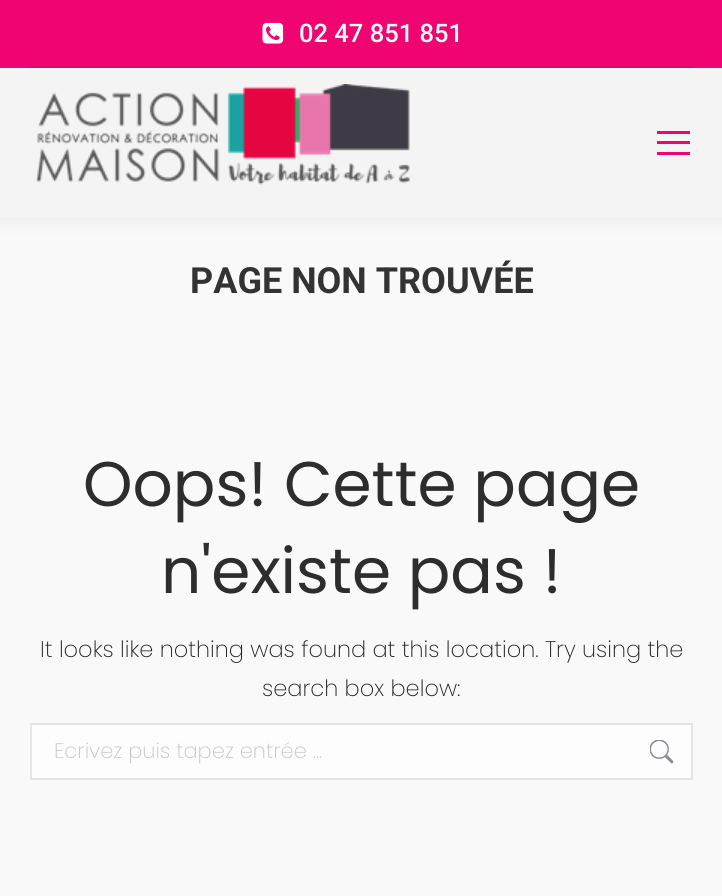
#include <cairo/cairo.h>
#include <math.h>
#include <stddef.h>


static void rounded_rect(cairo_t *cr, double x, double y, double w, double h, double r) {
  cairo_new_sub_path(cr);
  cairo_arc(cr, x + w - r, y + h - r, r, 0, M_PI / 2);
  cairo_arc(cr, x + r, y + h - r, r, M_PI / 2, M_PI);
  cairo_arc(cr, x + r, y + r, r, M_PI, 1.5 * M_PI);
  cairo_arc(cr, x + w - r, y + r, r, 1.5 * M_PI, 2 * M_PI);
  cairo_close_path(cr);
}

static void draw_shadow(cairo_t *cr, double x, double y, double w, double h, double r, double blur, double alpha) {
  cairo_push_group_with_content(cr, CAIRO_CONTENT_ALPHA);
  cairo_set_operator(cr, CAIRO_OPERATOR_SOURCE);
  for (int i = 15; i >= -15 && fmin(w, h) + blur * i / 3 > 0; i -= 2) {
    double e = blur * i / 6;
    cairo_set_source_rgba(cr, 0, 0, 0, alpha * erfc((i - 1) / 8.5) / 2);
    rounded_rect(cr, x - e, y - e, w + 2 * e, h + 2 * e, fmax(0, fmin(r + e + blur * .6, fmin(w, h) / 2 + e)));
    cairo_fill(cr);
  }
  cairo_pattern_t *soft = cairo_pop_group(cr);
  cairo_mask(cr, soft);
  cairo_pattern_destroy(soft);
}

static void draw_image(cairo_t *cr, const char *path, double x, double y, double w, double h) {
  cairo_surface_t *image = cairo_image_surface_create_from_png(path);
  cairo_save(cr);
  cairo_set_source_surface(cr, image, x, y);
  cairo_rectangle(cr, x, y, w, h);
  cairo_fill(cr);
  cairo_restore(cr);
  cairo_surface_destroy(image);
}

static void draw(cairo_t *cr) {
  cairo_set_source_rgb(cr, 249 / 255.0, 249 / 255.0, 249 / 255.0);
  cairo_paint(cr);
  draw_image(cr, "images/1.png", 522, 644, 1, 1);
  cairo_set_source_rgb(cr, 0, 0, 0);
  draw_shadow(cr, -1, -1, 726, 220, 0, 11, 0.07);
  cairo_set_source_rgb(cr, 244 / 255.0, 244 / 255.0, 244 / 255.0);
  cairo_rectangle(cr, 0, 68, 722, 150);
  cairo_fill(cr);
  cairo_set_source_rgb(cr, 239 / 255.0, 4 / 255.0, 114 / 255.0);
  cairo_rectangle(cr, 0, 0, 722, 68);
  cairo_fill(cr);
  draw_image(cr, "images/2.png", 262, 22, 22, 22);
  cairo_set_source_rgb(cr, 216 / 255.0, 10 / 255.0, 106 / 255.0);
  cairo_rectangle(cr, 30, 66, 663, 2);
  cairo_fill(cr);
  draw_image(cr, "images/3.png", 36, 84, 374, 101);
  cairo_set_source_rgb(cr, 239 / 255.0, 4 / 255.0, 114 / 255.0);
  cairo_rectangle(cr, 657, 131, 33, 3);
  cairo_fill(cr);
  cairo_rectangle(cr, 657, 141, 33, 3);
  cairo_fill(cr);
  cairo_rectangle(cr, 657, 152, 33, 3);
  cairo_fill(cr);
  cairo_set_source_rgb(cr, 253 / 255.0, 253 / 255.0, 253 / 255.0);
  rounded_rect(cr, 30, 723, 663, 57, 1.5);
  cairo_fill(cr);
  cairo_rectangle(cr, 31, 724, 661, 55);
  cairo_set_source_rgba(cr, 51 / 255.0, 51 / 255.0, 51 / 255.0, 0.12);
  cairo_stroke(cr);
  draw_image(cr, "images/4.png", 650, 740, 24, 24);
  cairo_select_font_face(cr, "Roboto Medium", CAIRO_FONT_SLANT_NORMAL, CAIRO_FONT_WEIGHT_NORMAL);
  cairo_set_font_size(cr, 25.5);
  cairo_set_source_rgb(cr, 1, 1, 1);
  cairo_move_to(cr, 299, 42);
  cairo_show_text(cr, "02 47 851 851");
  cairo_select_font_face(cr, "Roboto", CAIRO_FONT_SLANT_NORMAL, CAIRO_FONT_WEIGHT_BOLD);
  cairo_set_font_size(cr, 36);
  cairo_set_source_rgb(cr, 51 / 255.0, 51 / 255.0, 51 / 255.0);
  cairo_move_to(cr, 190, 293);
  cairo_show_text(cr, "PAGE NON TROUVÉE");
  cairo_select_font_face(cr, "Poppins", CAIRO_FONT_SLANT_NORMAL, CAIRO_FONT_WEIGHT_NORMAL);
  cairo_set_font_size(cr, 63);
  cairo_set_source_rgb(cr, 45 / 255.0, 45 / 255.0, 45 / 255.0);
  cairo_move_to(cr, 83, 506);
  cairo_show_text(cr, "Oops! Cette page");
  cairo_move_to(cr, 161, 593);
  cairo_show_text(cr, "n'existe pas !");
  cairo_select_font_face(cr, "Poppins ExtraLight", CAIRO_FONT_SLANT_NORMAL, CAIRO_FONT_WEIGHT_NORMAL);
  cairo_set_font_size(cr, 22.5);
  cairo_set_source_rgb(cr, 35 / 255.0, 35 / 255.0, 35 / 255.0);
  cairo_move_to(cr, 40, 657);
  cairo_show_text(cr, "It looks like nothing was found at this location. Try using the");
  cairo_move_to(cr, 262, 696);
  cairo_show_text(cr, "search box below:");
  cairo_set_font_size(cr, 21);
  cairo_set_source_rgb(cr, 196 / 255.0, 197 / 255.0, 201 / 255.0);
  cairo_move_to(cr, 54, 758);
  cairo_show_text(cr, "Ecrivez puis tapez entrée ...");
}

int main(void) {
  cairo_surface_t *surface = cairo_image_surface_create(CAIRO_FORMAT_RGB24, 722, 896);
  cairo_t *cr = cairo_create(surface);
  cairo_font_options_t *options = cairo_font_options_create();
  cairo_font_options_set_hint_metrics(options, CAIRO_HINT_METRICS_OFF);
  cairo_font_options_set_hint_style(options, CAIRO_HINT_STYLE_NONE);
  cairo_set_font_options(cr, options);
  cairo_set_miter_limit(cr, 4);
  draw(cr);
  cairo_surface_write_to_png(surface, "out.png");
  cairo_font_options_destroy(options);
  cairo_destroy(cr);
  cairo_surface_destroy(surface);
  return 0;
}
